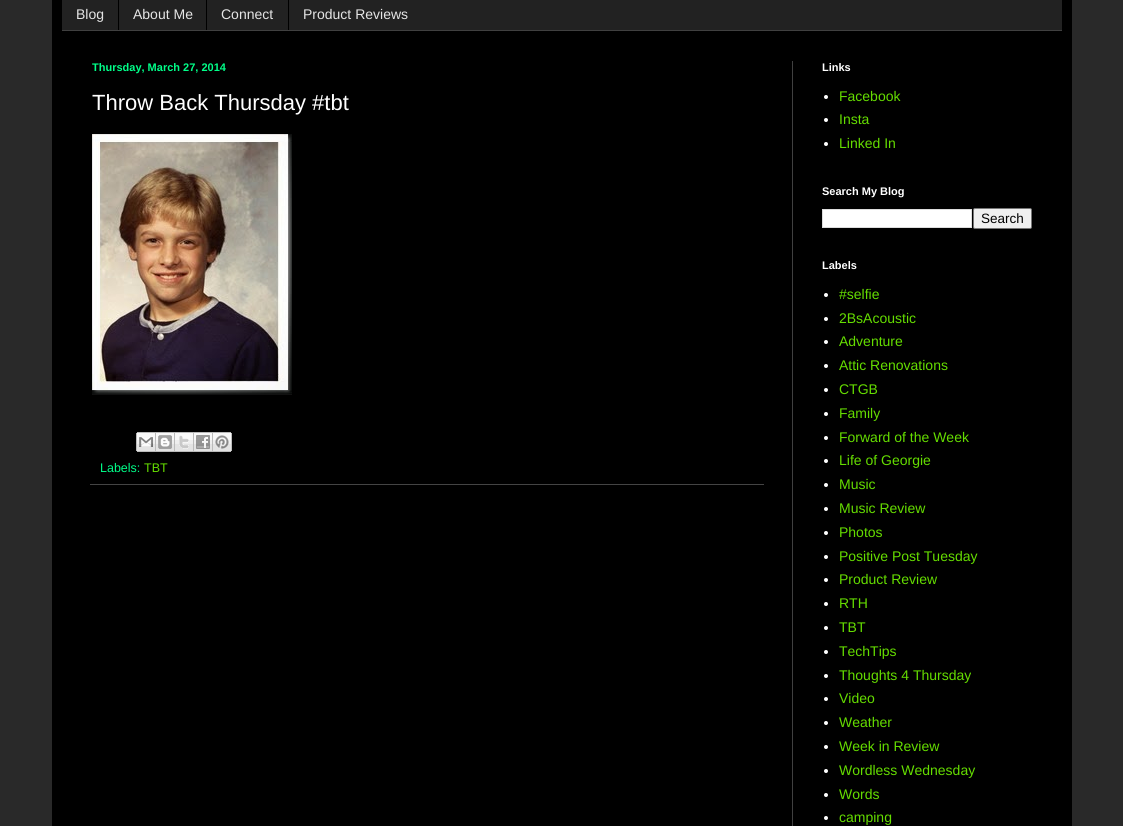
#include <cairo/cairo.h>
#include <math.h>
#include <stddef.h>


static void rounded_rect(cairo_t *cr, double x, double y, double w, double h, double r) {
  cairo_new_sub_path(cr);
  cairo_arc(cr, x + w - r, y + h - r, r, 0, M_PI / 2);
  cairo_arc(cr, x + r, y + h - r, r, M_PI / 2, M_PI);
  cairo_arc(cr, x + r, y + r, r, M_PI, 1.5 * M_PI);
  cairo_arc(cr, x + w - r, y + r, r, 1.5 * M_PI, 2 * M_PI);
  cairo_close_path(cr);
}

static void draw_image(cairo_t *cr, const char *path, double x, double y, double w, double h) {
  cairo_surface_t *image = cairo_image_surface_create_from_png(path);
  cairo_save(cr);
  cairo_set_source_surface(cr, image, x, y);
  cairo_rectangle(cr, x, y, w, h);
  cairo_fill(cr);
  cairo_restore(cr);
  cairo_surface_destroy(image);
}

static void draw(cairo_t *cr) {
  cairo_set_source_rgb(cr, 41 / 255.0, 41 / 255.0, 41 / 255.0);
  cairo_paint(cr);
  cairo_set_source_rgb(cr, 0, 0, 0);
  cairo_rectangle(cr, 52, 0, 1020, 826);
  cairo_fill(cr);
  cairo_set_source_rgb(cr, 34 / 255.0, 34 / 255.0, 34 / 255.0);
  cairo_rectangle(cr, 62, 0, 1000, 30);
  cairo_fill(cr);
  cairo_set_source_rgb(cr, 64 / 255.0, 64 / 255.0, 64 / 255.0);
  cairo_rectangle(cr, 62, 30, 1000, 1);
  cairo_fill(cr);
  cairo_set_source_rgb(cr, 0, 0, 0);
  cairo_rectangle(cr, 118, 0, 1, 30);
  cairo_fill(cr);
  cairo_rectangle(cr, 206, 0, 1, 30);
  cairo_fill(cr);
  cairo_rectangle(cr, 288, 0, 1, 30);
  cairo_fill(cr);
  cairo_set_source_rgb(cr, 64 / 255.0, 64 / 255.0, 64 / 255.0);
  cairo_rectangle(cr, 792, 61, 1, 765);
  cairo_fill(cr);
  draw_image(cr, "images/1.png", 92, 134, 200, 260);
  cairo_set_source_rgb(cr, 17 / 255.0, 17 / 255.0, 17 / 255.0);
  cairo_rectangle(cr, 92, 394, 200, 1);
  cairo_fill(cr);
  cairo_set_source_rgb(cr, 68 / 255.0, 68 / 255.0, 68 / 255.0);
  cairo_rectangle(cr, 90, 484, 674, 1);
  cairo_fill(cr);
  draw_image(cr, "images/2.png", 136, 432, 20, 20);
  draw_image(cr, "images/3.png", 156, 432, 19, 20);
  draw_image(cr, "images/4.png", 175, 432, 19, 20);
  draw_image(cr, "images/5.png", 194, 432, 19, 20);
  draw_image(cr, "images/6.png", 213, 432, 19, 20);
  cairo_set_source_rgb(cr, 1, 1, 1);
  cairo_arc(cr, 826, 97, 2, 0, 2 * M_PI);
  cairo_fill(cr);
  cairo_arc(cr, 826, 120, 2, 0, 2 * M_PI);
  cairo_fill(cr);
  cairo_arc(cr, 826, 144, 2, 0, 2 * M_PI);
  cairo_fill(cr);
  cairo_rectangle(cr, 822.5, 209.5, 149, 18);
  cairo_fill_preserve(cr);
  cairo_set_source_rgb(cr, 221 / 255.0, 221 / 255.0, 221 / 255.0);
  cairo_set_line_width(cr, 1);
  cairo_stroke(cr);
  cairo_set_source_rgb(cr, 239 / 255.0, 239 / 255.0, 239 / 255.0);
  rounded_rect(cr, 973.5, 208.5, 58, 20, 1.5);
  cairo_fill_preserve(cr);
  cairo_set_source_rgb(cr, 118 / 255.0, 118 / 255.0, 118 / 255.0);
  cairo_stroke(cr);
  cairo_set_source_rgb(cr, 1, 1, 1);
  cairo_arc(cr, 826, 295, 2, 0, 2 * M_PI);
  cairo_fill(cr);
  cairo_arc(cr, 826, 319, 2, 0, 2 * M_PI);
  cairo_fill(cr);
  cairo_arc(cr, 826, 342, 2, 0, 2 * M_PI);
  cairo_fill(cr);
  cairo_arc(cr, 826, 366, 2, 0, 2 * M_PI);
  cairo_fill(cr);
  cairo_arc(cr, 826, 390, 2, 0, 2 * M_PI);
  cairo_fill(cr);
  cairo_arc(cr, 826, 414, 2, 0, 2 * M_PI);
  cairo_fill(cr);
  cairo_arc(cr, 826, 438, 2, 0, 2 * M_PI);
  cairo_fill(cr);
  cairo_arc(cr, 826, 461, 2, 0, 2 * M_PI);
  cairo_fill(cr);
  cairo_arc(cr, 826, 485, 2, 0, 2 * M_PI);
  cairo_fill(cr);
  cairo_arc(cr, 826, 509, 2, 0, 2 * M_PI);
  cairo_fill(cr);
  cairo_arc(cr, 826, 533, 2, 0, 2 * M_PI);
  cairo_fill(cr);
  cairo_arc(cr, 826, 557, 2, 0, 2 * M_PI);
  cairo_fill(cr);
  cairo_arc(cr, 826, 580, 2, 0, 2 * M_PI);
  cairo_fill(cr);
  cairo_arc(cr, 826, 604, 2, 0, 2 * M_PI);
  cairo_fill(cr);
  cairo_arc(cr, 826, 628, 2, 0, 2 * M_PI);
  cairo_fill(cr);
  cairo_arc(cr, 826, 652, 2, 0, 2 * M_PI);
  cairo_fill(cr);
  cairo_arc(cr, 826, 676, 2, 0, 2 * M_PI);
  cairo_fill(cr);
  cairo_arc(cr, 826, 699, 2, 0, 2 * M_PI);
  cairo_fill(cr);
  cairo_arc(cr, 826, 723, 2, 0, 2 * M_PI);
  cairo_fill(cr);
  cairo_arc(cr, 826, 747, 2, 0, 2 * M_PI);
  cairo_fill(cr);
  cairo_arc(cr, 826, 771, 2, 0, 2 * M_PI);
  cairo_fill(cr);
  cairo_arc(cr, 826, 795, 2, 0, 2 * M_PI);
  cairo_fill(cr);
  cairo_arc(cr, 826, 818, 2, 0, 2 * M_PI);
  cairo_fill(cr);
  cairo_select_font_face(cr, "Liberation Sans", CAIRO_FONT_SLANT_NORMAL, CAIRO_FONT_WEIGHT_NORMAL);
  cairo_set_font_size(cr, 14);
  cairo_set_source_rgb(cr, 229 / 255.0, 229 / 255.0, 229 / 255.0);
  cairo_move_to(cr, 76, 19);
  cairo_show_text(cr, "Blog");
  cairo_move_to(cr, 133, 19);
  cairo_show_text(cr, "About Me");
  cairo_move_to(cr, 221, 19);
  cairo_show_text(cr, "Connect");
  cairo_move_to(cr, 303, 19);
  cairo_show_text(cr, "Product Reviews");
  cairo_select_font_face(cr, "Liberation Sans", CAIRO_FONT_SLANT_NORMAL, CAIRO_FONT_WEIGHT_BOLD);
  cairo_set_font_size(cr, 11);
  cairo_set_source_rgb(cr, 0, 1, 137 / 255.0);
  cairo_move_to(cr, 92, 71);
  cairo_show_text(cr, "Thursday, March 27, 2014");
  cairo_select_font_face(cr, "Liberation Sans", CAIRO_FONT_SLANT_NORMAL, CAIRO_FONT_WEIGHT_NORMAL);
  cairo_set_font_size(cr, 22);
  cairo_set_source_rgb(cr, 1, 1, 1);
  cairo_move_to(cr, 92, 110);
  cairo_show_text(cr, "Throw Back Thursday #tbt");
  cairo_set_font_size(cr, 12.5);
  cairo_set_source_rgb(cr, 0, 1, 137 / 255.0);
  cairo_move_to(cr, 100, 472);
  cairo_show_text(cr, "Labels:");
  cairo_set_source_rgb(cr, 101 / 255.0, 221 / 255.0, 0);
  cairo_move_to(cr, 144, 472);
  cairo_show_text(cr, "TBT");
  cairo_select_font_face(cr, "Liberation Sans", CAIRO_FONT_SLANT_NORMAL, CAIRO_FONT_WEIGHT_BOLD);
  cairo_set_font_size(cr, 11);
  cairo_set_source_rgb(cr, 1, 1, 1);
  cairo_move_to(cr, 822, 71);
  cairo_show_text(cr, "Links");
  cairo_select_font_face(cr, "Liberation Sans", CAIRO_FONT_SLANT_NORMAL, CAIRO_FONT_WEIGHT_NORMAL);
  cairo_set_font_size(cr, 14);
  cairo_set_source_rgb(cr, 101 / 255.0, 221 / 255.0, 0);
  cairo_move_to(cr, 839, 101);
  cairo_show_text(cr, "Facebook");
  cairo_move_to(cr, 839, 124);
  cairo_show_text(cr, "Insta");
  cairo_move_to(cr, 839, 148);
  cairo_show_text(cr, "Linked In");
  cairo_select_font_face(cr, "Liberation Sans", CAIRO_FONT_SLANT_NORMAL, CAIRO_FONT_WEIGHT_BOLD);
  cairo_set_font_size(cr, 11);
  cairo_set_source_rgb(cr, 1, 1, 1);
  cairo_move_to(cr, 822, 195);
  cairo_show_text(cr, "Search My Blog");
  cairo_select_font_face(cr, "Liberation Sans", CAIRO_FONT_SLANT_NORMAL, CAIRO_FONT_WEIGHT_NORMAL);
  cairo_set_font_size(cr, 13.5);
  cairo_set_source_rgb(cr, 0, 0, 0);
  cairo_move_to(cr, 981, 223);
  cairo_show_text(cr, "Search");
  cairo_select_font_face(cr, "Liberation Sans", CAIRO_FONT_SLANT_NORMAL, CAIRO_FONT_WEIGHT_BOLD);
  cairo_set_font_size(cr, 11);
  cairo_set_source_rgb(cr, 1, 1, 1);
  cairo_move_to(cr, 822, 269);
  cairo_show_text(cr, "Labels");
  cairo_select_font_face(cr, "Liberation Sans", CAIRO_FONT_SLANT_NORMAL, CAIRO_FONT_WEIGHT_NORMAL);
  cairo_set_font_size(cr, 14);
  cairo_set_source_rgb(cr, 101 / 255.0, 221 / 255.0, 0);
  cairo_move_to(cr, 839, 299);
  cairo_show_text(cr, "#selfie");
  cairo_move_to(cr, 839, 323);
  cairo_show_text(cr, "2BsAcoustic");
  cairo_move_to(cr, 839, 346);
  cairo_show_text(cr, "Adventure");
  cairo_move_to(cr, 839, 370);
  cairo_show_text(cr, "Attic Renovations");
  cairo_move_to(cr, 839, 394);
  cairo_show_text(cr, "CTGB");
  cairo_move_to(cr, 839, 418);
  cairo_show_text(cr, "Family");
  cairo_move_to(cr, 839, 442);
  cairo_show_text(cr, "Forward of the Week");
  cairo_move_to(cr, 839, 465);
  cairo_show_text(cr, "Life of Georgie");
  cairo_move_to(cr, 839, 489);
  cairo_show_text(cr, "Music");
  cairo_move_to(cr, 839, 513);
  cairo_show_text(cr, "Music Review");
  cairo_move_to(cr, 839, 537);
  cairo_show_text(cr, "Photos");
  cairo_move_to(cr, 839, 561);
  cairo_show_text(cr, "Positive Post Tuesday");
  cairo_move_to(cr, 839, 584);
  cairo_show_text(cr, "Product Review");
  cairo_move_to(cr, 839, 608);
  cairo_show_text(cr, "RTH");
  cairo_move_to(cr, 839, 632);
  cairo_show_text(cr, "TBT");
  cairo_move_to(cr, 839, 656);
  cairo_show_text(cr, "TechTips");
  cairo_move_to(cr, 839, 680);
  cairo_show_text(cr, "Thoughts 4 Thursday");
  cairo_move_to(cr, 839, 703);
  cairo_show_text(cr, "Video");
  cairo_move_to(cr, 839, 727);
  cairo_show_text(cr, "Weather");
  cairo_move_to(cr, 839, 751);
  cairo_show_text(cr, "Week in Review");
  cairo_move_to(cr, 839, 775);
  cairo_show_text(cr, "Wordless Wednesday");
  cairo_move_to(cr, 839, 799);
  cairo_show_text(cr, "Words");
  cairo_move_to(cr, 839, 822);
  cairo_show_text(cr, "camping");
}

int main(void) {
  cairo_surface_t *surface = cairo_image_surface_create(CAIRO_FORMAT_RGB24, 1123, 826);
  cairo_t *cr = cairo_create(surface);
  cairo_font_options_t *options = cairo_font_options_create();
  cairo_font_options_set_hint_metrics(options, CAIRO_HINT_METRICS_OFF);
  cairo_font_options_set_hint_style(options, CAIRO_HINT_STYLE_NONE);
  cairo_set_font_options(cr, options);
  cairo_set_miter_limit(cr, 4);
  draw(cr);
  cairo_surface_write_to_png(surface, "out.png");
  cairo_font_options_destroy(options);
  cairo_destroy(cr);
  cairo_surface_destroy(surface);
  return 0;
}
